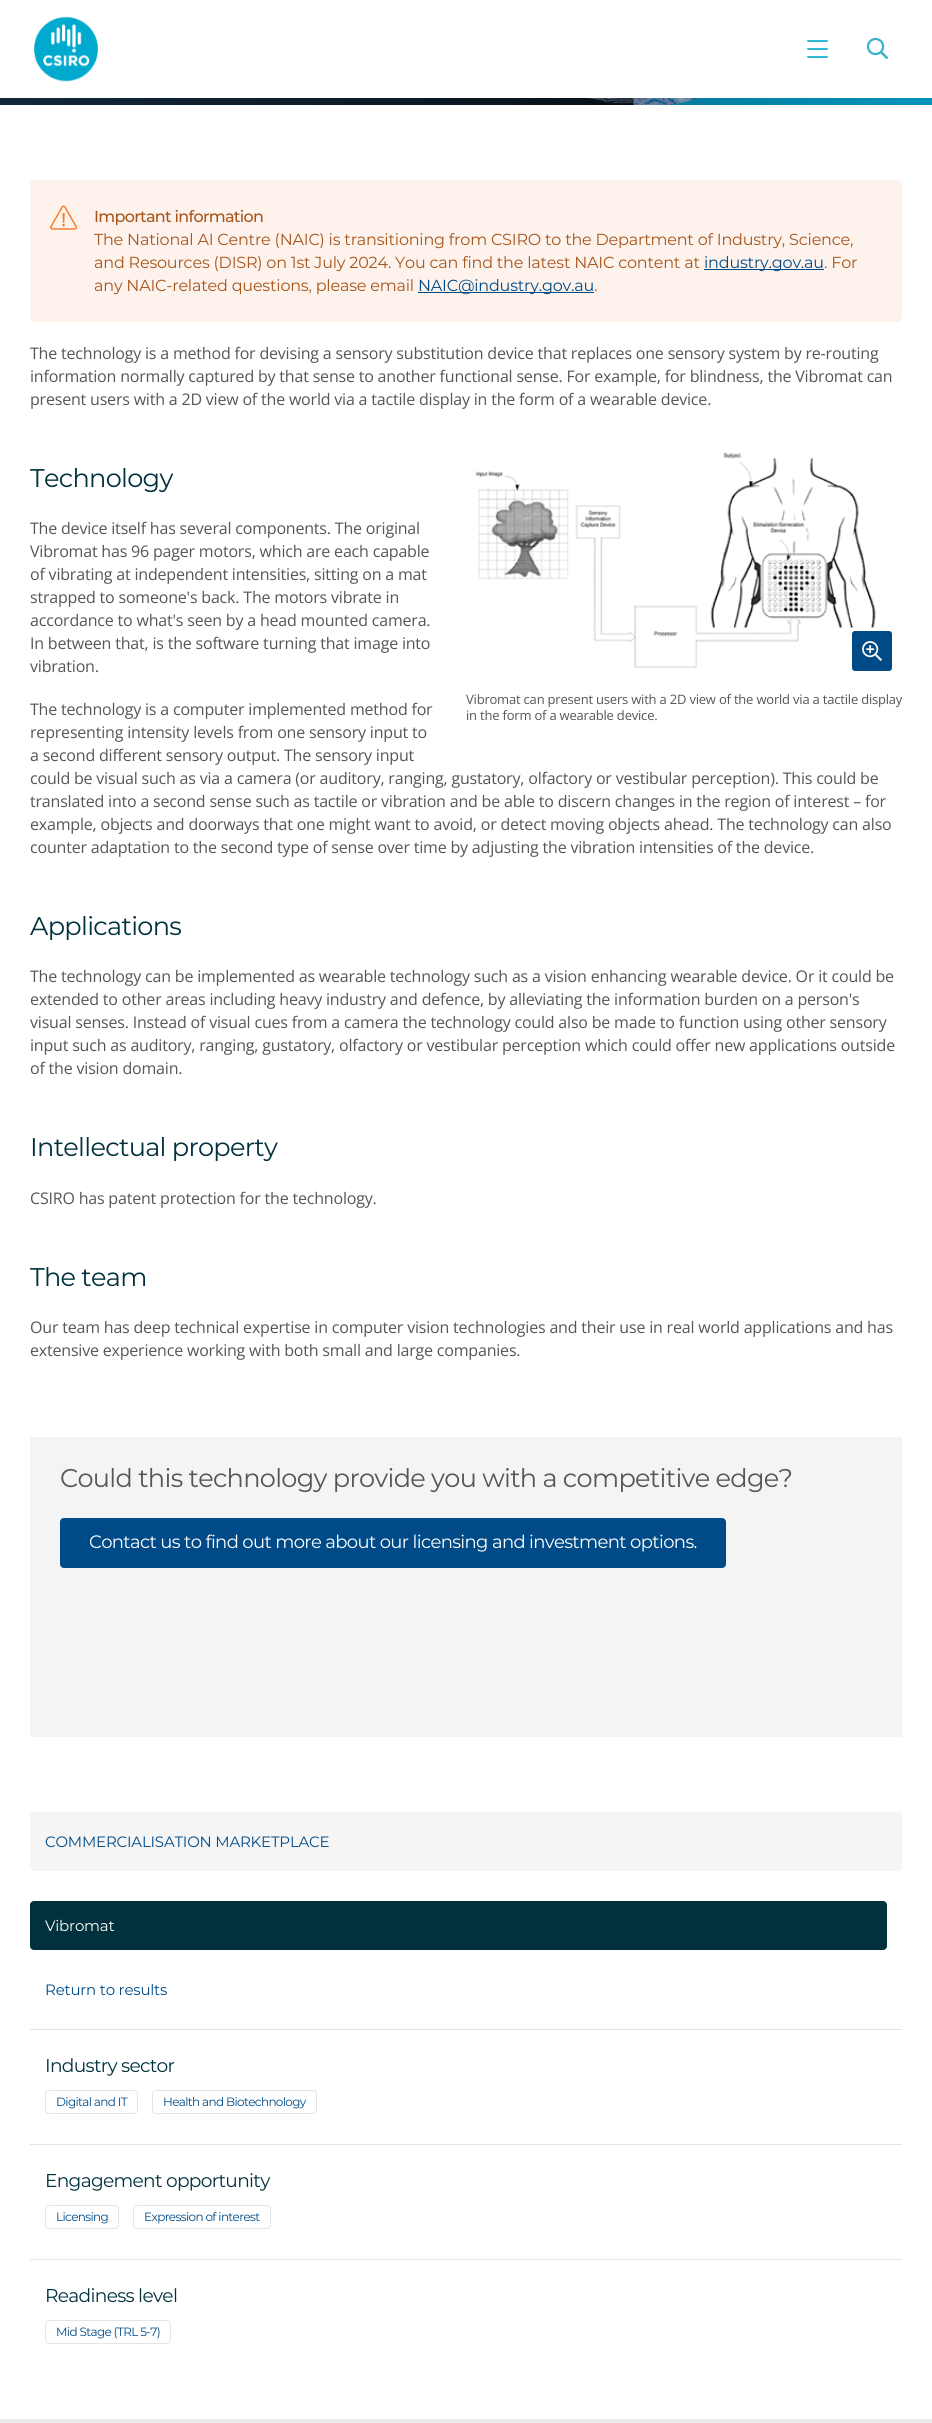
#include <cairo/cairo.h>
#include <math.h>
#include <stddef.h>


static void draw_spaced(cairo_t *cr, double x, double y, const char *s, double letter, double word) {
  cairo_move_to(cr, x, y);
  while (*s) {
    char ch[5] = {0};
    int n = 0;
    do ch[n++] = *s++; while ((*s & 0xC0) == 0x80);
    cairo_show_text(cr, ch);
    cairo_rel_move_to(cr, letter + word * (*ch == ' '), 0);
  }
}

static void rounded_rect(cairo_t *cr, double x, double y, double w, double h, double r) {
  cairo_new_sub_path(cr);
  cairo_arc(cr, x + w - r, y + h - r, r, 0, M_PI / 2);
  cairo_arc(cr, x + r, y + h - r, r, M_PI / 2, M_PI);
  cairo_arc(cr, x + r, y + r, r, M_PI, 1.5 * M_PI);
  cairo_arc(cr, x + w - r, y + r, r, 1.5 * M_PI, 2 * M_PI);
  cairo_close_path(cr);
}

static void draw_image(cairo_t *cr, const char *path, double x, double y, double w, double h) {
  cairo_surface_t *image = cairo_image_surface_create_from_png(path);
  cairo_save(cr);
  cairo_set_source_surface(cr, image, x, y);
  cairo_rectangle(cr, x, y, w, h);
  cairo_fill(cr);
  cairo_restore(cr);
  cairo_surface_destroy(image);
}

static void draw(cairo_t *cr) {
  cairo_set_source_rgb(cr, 1, 1, 1);
  cairo_paint(cr);
  draw_image(cr, "images/1.png", 34, 16, 64, 66);
  cairo_set_source_rgb(cr, 48 / 255.0, 183 / 255.0, 212 / 255.0);
  rounded_rect(cr, 807, 48, 21, 2, 1);
  cairo_fill(cr);
  rounded_rect(cr, 807, 40, 21, 2, 1);
  cairo_fill(cr);
  rounded_rect(cr, 807, 56, 21, 2, 1);
  cairo_fill(cr);
  draw_image(cr, "images/2.png", 867, 38, 21, 21);
  draw_image(cr, "images/3.png", 0, 98, 932, 7);
  cairo_set_source_rgb(cr, 254 / 255.0, 243 / 255.0, 236 / 255.0);
  rounded_rect(cr, 30, 180, 872, 142, 4);
  cairo_fill(cr);
  draw_image(cr, "images/4.png", 50, 205, 27, 25);
  cairo_set_source_rgb(cr, 0, 75 / 255.0, 135 / 255.0);
  cairo_rectangle(cr, 704, 269, 120, 1);
  cairo_fill(cr);
  cairo_rectangle(cr, 418, 292, 176, 1);
  cairo_fill(cr);
  draw_image(cr, "images/5.png", 466, 431, 436, 250);
  rounded_rect(cr, 852, 631, 40, 40, 3);
  cairo_fill(cr);
  draw_image(cr, "images/6.png", 862, 641, 20, 20);
  cairo_set_source_rgb(cr, 244 / 255.0, 244 / 255.0, 244 / 255.0);
  cairo_rectangle(cr, 30, 1437, 872, 300);
  cairo_fill(cr);
  cairo_set_source_rgb(cr, 0, 75 / 255.0, 135 / 255.0);
  rounded_rect(cr, 60.5, 1518.5, 665, 49, 3.5);
  cairo_fill_preserve(cr);
  cairo_set_line_width(cr, 1);
  cairo_stroke(cr);
  cairo_set_source_rgb(cr, 245 / 255.0, 245 / 255.0, 245 / 255.0);
  rounded_rect(cr, 30, 1812, 872, 59, 4);
  cairo_fill(cr);
  cairo_set_source_rgb(cr, 0, 49 / 255.0, 60 / 255.0);
  rounded_rect(cr, 30, 1901, 857, 49, 4);
  cairo_fill(cr);
  cairo_set_source_rgb(cr, 228 / 255.0, 228 / 255.0, 228 / 255.0);
  cairo_rectangle(cr, 30, 2029, 872, 1);
  cairo_fill(cr);
  rounded_rect(cr, 45.5, 2090.5, 92, 23, 3.5);
  cairo_stroke(cr);
  rounded_rect(cr, 152.5, 2090.5, 164, 23, 3.5);
  cairo_stroke(cr);
  cairo_rectangle(cr, 30, 2144, 872, 1);
  cairo_fill(cr);
  rounded_rect(cr, 45.5, 2205.5, 73, 23, 3.5);
  cairo_stroke(cr);
  rounded_rect(cr, 133.5, 2205.5, 137, 23, 3.5);
  cairo_stroke(cr);
  cairo_rectangle(cr, 30, 2259, 872, 1);
  cairo_fill(cr);
  rounded_rect(cr, 45.5, 2320.5, 125, 23, 3.5);
  cairo_stroke(cr);
  cairo_set_source_rgb(cr, 234 / 255.0, 234 / 255.0, 234 / 255.0);
  cairo_rectangle(cr, 0, 2419, 932, 4);
  cairo_fill(cr);
  cairo_select_font_face(cr, "Montserrat Medium", CAIRO_FONT_SLANT_NORMAL, CAIRO_FONT_WEIGHT_NORMAL);
  cairo_set_font_size(cr, 16);
  cairo_set_source_rgb(cr, 166 / 255.0, 85 / 255.0, 28 / 255.0);
  draw_spaced(cr, 94, 222, "Important information", -0.7, 0);
  cairo_select_font_face(cr, "Montserrat", CAIRO_FONT_SLANT_NORMAL, CAIRO_FONT_WEIGHT_NORMAL);
  draw_spaced(cr, 94, 245, "The National AI Centre (NAIC) is transitioning from CSIRO to the Department of Industry, Science,", -0.19, 0);
  draw_spaced(cr, 94, 268, "and Resources (DISR) on 1st July 2024. You can find the latest NAIC content at", -0.19, 0);
  cairo_set_source_rgb(cr, 0, 75 / 255.0, 135 / 255.0);
  draw_spaced(cr, 704, 268, "industry.gov.au", -0.19, 0);
  cairo_set_source_rgb(cr, 166 / 255.0, 85 / 255.0, 28 / 255.0);
  draw_spaced(cr, 824, 268, ". For", -0.19, 0);
  draw_spaced(cr, 94, 291, "any NAIC-related questions, please email", -0.19, 0);
  cairo_set_source_rgb(cr, 0, 75 / 255.0, 135 / 255.0);
  draw_spaced(cr, 418, 291, "NAIC@industry.gov.au", -0.19, 0);
  cairo_set_source_rgb(cr, 166 / 255.0, 85 / 255.0, 28 / 255.0);
  draw_spaced(cr, 594, 291, ".", -0.19, 0);
  cairo_select_font_face(cr, "Open Sans", CAIRO_FONT_SLANT_NORMAL, CAIRO_FONT_WEIGHT_NORMAL);
  cairo_set_source_rgb(cr, 85 / 255.0, 86 / 255.0, 88 / 255.0);
  draw_spaced(cr, 30, 359, "The technology is a method for devising a sensory substitution device that replaces one sensory system by re-routing", -0.19, 0);
  draw_spaced(cr, 30, 382, "information normally captured by that sense to another functional sense. For example, for blindness, the Vibromat can", -0.19, 0);
  draw_spaced(cr, 30, 405, "present users with a 2D view of the world via a tactile display in the form of a wearable device.", -0.19, 0);
  cairo_select_font_face(cr, "Montserrat", CAIRO_FONT_SLANT_NORMAL, CAIRO_FONT_WEIGHT_NORMAL);
  cairo_set_font_size(cr, 25.6);
  cairo_set_source_rgb(cr, 0, 49 / 255.0, 60 / 255.0);
  draw_spaced(cr, 30, 487, "Technology", -0.7, 0);
  cairo_select_font_face(cr, "Open Sans", CAIRO_FONT_SLANT_NORMAL, CAIRO_FONT_WEIGHT_NORMAL);
  cairo_set_font_size(cr, 16);
  cairo_set_source_rgb(cr, 85 / 255.0, 86 / 255.0, 88 / 255.0);
  draw_spaced(cr, 30, 534, "The device itself has several components. The original", -0.19, 0);
  draw_spaced(cr, 30, 557, "Vibromat has 96 pager motors, which are each capable", -0.19, 0);
  draw_spaced(cr, 30, 580, "of vibrating at independent intensities, sitting on a mat", -0.19, 0);
  draw_spaced(cr, 30, 603, "strapped to someone's back. The motors vibrate in", -0.19, 0);
  draw_spaced(cr, 30, 626, "accordance to what's seen by a head mounted camera.", -0.19, 0);
  draw_spaced(cr, 30, 649, "In between that, is the software turning that image into", -0.19, 0);
  draw_spaced(cr, 30, 672, "vibration.", -0.19, 0);
  cairo_set_font_size(cr, 13);
  draw_spaced(cr, 466, 704, "Vibromat can present users with a 2D view of the world via a tactile display", -0.2, 0);
  draw_spaced(cr, 466, 720, "in the form of a wearable device.", -0.2, 0);
  cairo_set_font_size(cr, 16);
  draw_spaced(cr, 30, 715, "The technology is a computer implemented method for", -0.19, 0);
  draw_spaced(cr, 30, 738, "representing intensity levels from one sensory input to", -0.19, 0);
  draw_spaced(cr, 30, 761, "a second different sensory output. The sensory input", -0.19, 0);
  draw_spaced(cr, 30, 784, "could be visual such as via a camera (or auditory, ranging, gustatory, olfactory or vestibular perception). This could be", -0.19, 0);
  draw_spaced(cr, 30, 807, "translated into a second sense such as tactile or vibration and be able to discern changes in the region of interest – for", -0.19, 0);
  draw_spaced(cr, 30, 830, "example, objects and doorways that one might want to avoid, or detect moving objects ahead. The technology can also", -0.19, 0);
  draw_spaced(cr, 30, 853, "counter adaptation to the second type of sense over time by adjusting the vibration intensities of the device.", -0.19, 0);
  cairo_select_font_face(cr, "Montserrat", CAIRO_FONT_SLANT_NORMAL, CAIRO_FONT_WEIGHT_NORMAL);
  cairo_set_font_size(cr, 25.6);
  cairo_set_source_rgb(cr, 0, 49 / 255.0, 60 / 255.0);
  draw_spaced(cr, 30, 935, "Applications", -0.7, 0);
  cairo_select_font_face(cr, "Open Sans", CAIRO_FONT_SLANT_NORMAL, CAIRO_FONT_WEIGHT_NORMAL);
  cairo_set_font_size(cr, 16);
  cairo_set_source_rgb(cr, 85 / 255.0, 86 / 255.0, 88 / 255.0);
  draw_spaced(cr, 30, 982, "The technology can be implemented as wearable technology such as a vision enhancing wearable device. Or it could be", -0.19, 0);
  draw_spaced(cr, 30, 1005, "extended to other areas including heavy industry and defence, by alleviating the information burden on a person's", -0.19, 0);
  draw_spaced(cr, 30, 1028, "visual senses. Instead of visual cues from a camera the technology could also be made to function using other sensory", -0.19, 0);
  draw_spaced(cr, 30, 1051, "input such as auditory, ranging, gustatory, olfactory or vestibular perception which could offer new applications outside", -0.19, 0);
  draw_spaced(cr, 30, 1074, "of the vision domain.", -0.19, 0);
  cairo_select_font_face(cr, "Montserrat", CAIRO_FONT_SLANT_NORMAL, CAIRO_FONT_WEIGHT_NORMAL);
  cairo_set_font_size(cr, 25.6);
  cairo_set_source_rgb(cr, 0, 49 / 255.0, 60 / 255.0);
  draw_spaced(cr, 30, 1156, "Intellectual property", -0.7, 0);
  cairo_select_font_face(cr, "Open Sans", CAIRO_FONT_SLANT_NORMAL, CAIRO_FONT_WEIGHT_NORMAL);
  cairo_set_font_size(cr, 16);
  cairo_set_source_rgb(cr, 85 / 255.0, 86 / 255.0, 88 / 255.0);
  draw_spaced(cr, 30, 1204, "CSIRO has patent protection for the technology.", -0.19, 0);
  cairo_select_font_face(cr, "Montserrat", CAIRO_FONT_SLANT_NORMAL, CAIRO_FONT_WEIGHT_NORMAL);
  cairo_set_font_size(cr, 25.6);
  cairo_set_source_rgb(cr, 0, 49 / 255.0, 60 / 255.0);
  draw_spaced(cr, 30, 1286, "The team", -0.7, 0);
  cairo_select_font_face(cr, "Open Sans", CAIRO_FONT_SLANT_NORMAL, CAIRO_FONT_WEIGHT_NORMAL);
  cairo_set_font_size(cr, 16);
  cairo_set_source_rgb(cr, 85 / 255.0, 86 / 255.0, 88 / 255.0);
  draw_spaced(cr, 30, 1333, "Our team has deep technical expertise in computer vision technologies and their use in real world applications and has", -0.19, 0);
  draw_spaced(cr, 30, 1356, "extensive experience working with both small and large companies.", -0.19, 0);
  cairo_select_font_face(cr, "Montserrat", CAIRO_FONT_SLANT_NORMAL, CAIRO_FONT_WEIGHT_NORMAL);
  cairo_set_font_size(cr, 25.6);
  draw_spaced(cr, 60, 1487, "Could this technology provide you with a competitive edge?", -0.7, 0);
  cairo_set_font_size(cr, 18);
  cairo_set_source_rgb(cr, 1, 1, 1);
  draw_spaced(cr, 89, 1548, "Contact us to find out more about our licensing and investment options.", -0.63, 0);
  cairo_set_font_size(cr, 15);
  cairo_set_source_rgb(cr, 0, 75 / 255.0, 135 / 255.0);
  draw_spaced(cr, 45, 1847, "COMMERCIALISATION MARKETPLACE", -0.2, 0);
  cairo_set_source_rgb(cr, 1, 1, 1);
  draw_spaced(cr, 45, 1931, "Vibromat", -0.2, 0);
  cairo_set_source_rgb(cr, 0, 75 / 255.0, 135 / 255.0);
  draw_spaced(cr, 45, 1995, "Return to results", -0.2, 0);
  cairo_set_font_size(cr, 18.6);
  cairo_set_source_rgb(cr, 0, 49 / 255.0, 60 / 255.0);
  draw_spaced(cr, 45, 2072, "Industry sector", -0.7, 0);
  cairo_set_font_size(cr, 12);
  cairo_set_source_rgb(cr, 0, 75 / 255.0, 135 / 255.0);
  draw_spaced(cr, 56, 2106, "Digital and IT", -0.63, 0);
  draw_spaced(cr, 163, 2106, "Health and Biotechnology", -0.63, 0);
  cairo_set_font_size(cr, 18.6);
  cairo_set_source_rgb(cr, 0, 49 / 255.0, 60 / 255.0);
  draw_spaced(cr, 45, 2187, "Engagement opportunity", -0.7, 0);
  cairo_set_font_size(cr, 12);
  cairo_set_source_rgb(cr, 0, 75 / 255.0, 135 / 255.0);
  draw_spaced(cr, 56, 2221, "Licensing", -0.63, 0);
  draw_spaced(cr, 144, 2221, "Expression of interest", -0.63, 0);
  cairo_set_font_size(cr, 18.6);
  cairo_set_source_rgb(cr, 0, 49 / 255.0, 60 / 255.0);
  draw_spaced(cr, 45, 2302, "Readiness level", -0.7, 0);
  cairo_set_font_size(cr, 12);
  cairo_set_source_rgb(cr, 0, 75 / 255.0, 135 / 255.0);
  draw_spaced(cr, 56, 2336, "Mid Stage (TRL 5-7)", -0.63, 0);
}

int main(void) {
  cairo_surface_t *surface = cairo_image_surface_create(CAIRO_FORMAT_RGB24, 932, 2423);
  cairo_t *cr = cairo_create(surface);
  cairo_font_options_t *options = cairo_font_options_create();
  cairo_font_options_set_hint_metrics(options, CAIRO_HINT_METRICS_OFF);
  cairo_font_options_set_hint_style(options, CAIRO_HINT_STYLE_NONE);
  cairo_set_font_options(cr, options);
  cairo_set_miter_limit(cr, 4);
  draw(cr);
  cairo_surface_write_to_png(surface, "out.png");
  cairo_font_options_destroy(options);
  cairo_destroy(cr);
  cairo_surface_destroy(surface);
  return 0;
}
